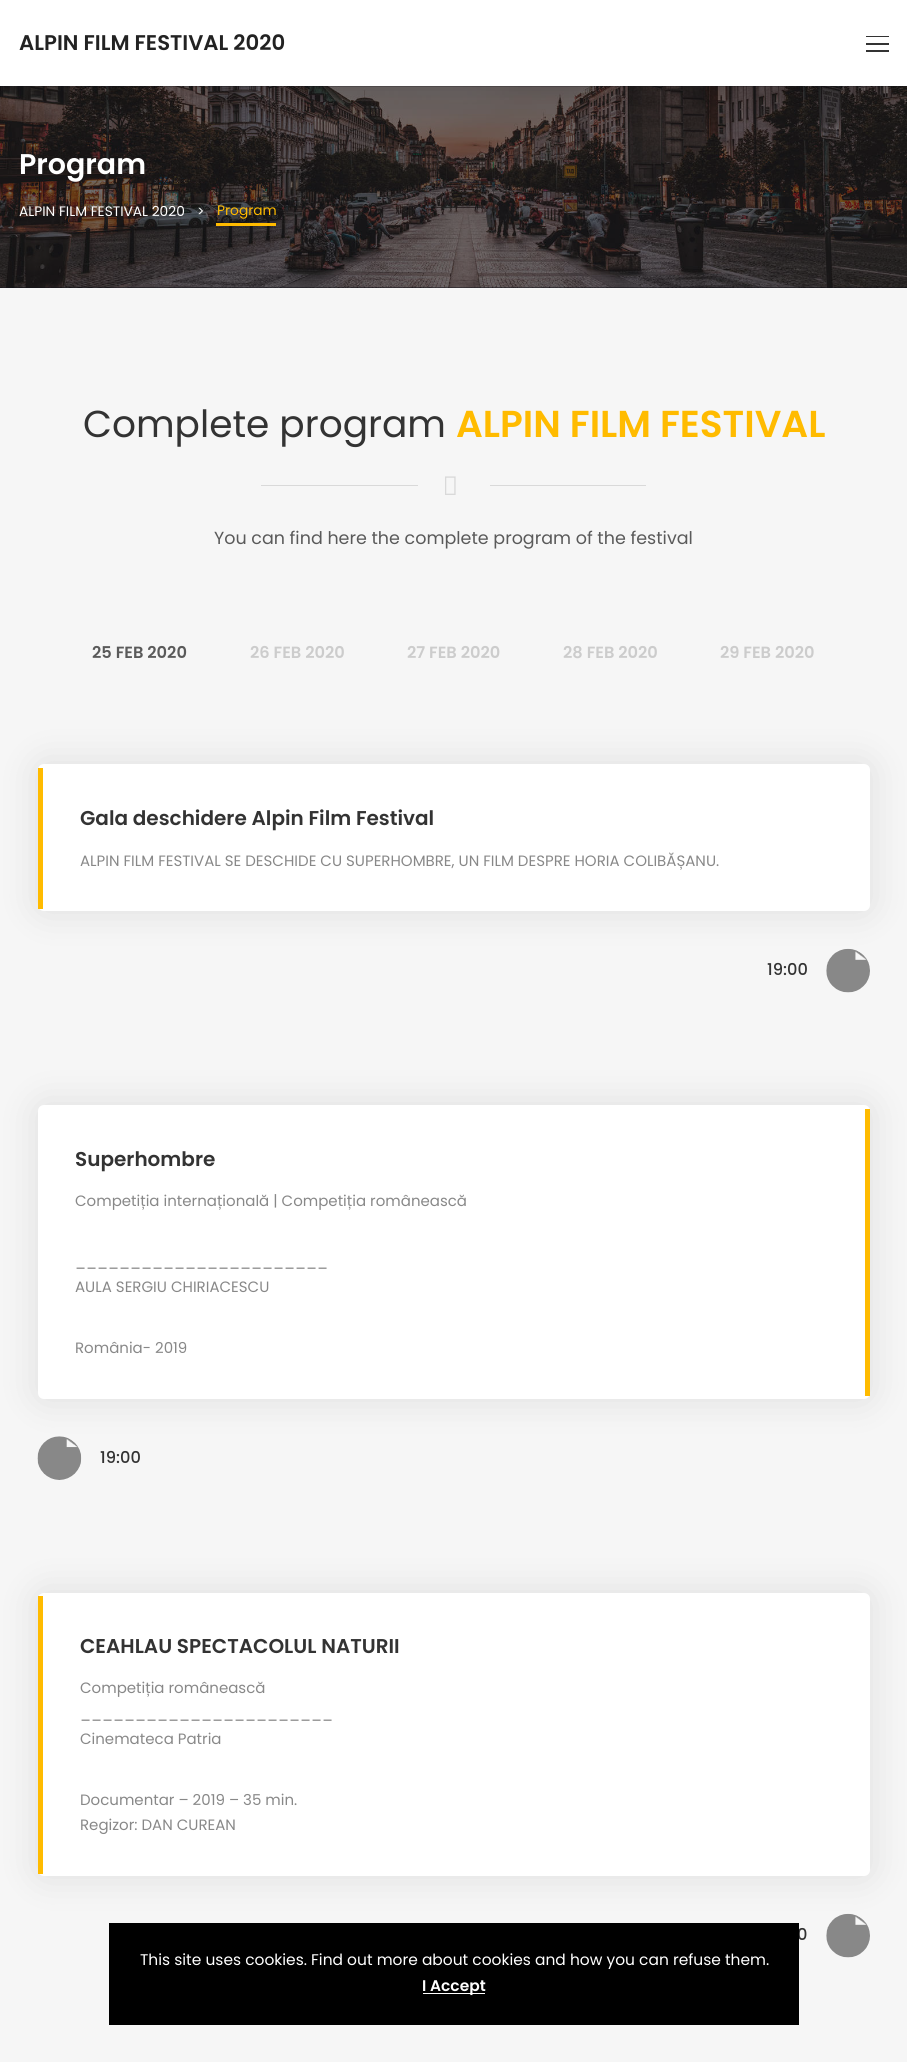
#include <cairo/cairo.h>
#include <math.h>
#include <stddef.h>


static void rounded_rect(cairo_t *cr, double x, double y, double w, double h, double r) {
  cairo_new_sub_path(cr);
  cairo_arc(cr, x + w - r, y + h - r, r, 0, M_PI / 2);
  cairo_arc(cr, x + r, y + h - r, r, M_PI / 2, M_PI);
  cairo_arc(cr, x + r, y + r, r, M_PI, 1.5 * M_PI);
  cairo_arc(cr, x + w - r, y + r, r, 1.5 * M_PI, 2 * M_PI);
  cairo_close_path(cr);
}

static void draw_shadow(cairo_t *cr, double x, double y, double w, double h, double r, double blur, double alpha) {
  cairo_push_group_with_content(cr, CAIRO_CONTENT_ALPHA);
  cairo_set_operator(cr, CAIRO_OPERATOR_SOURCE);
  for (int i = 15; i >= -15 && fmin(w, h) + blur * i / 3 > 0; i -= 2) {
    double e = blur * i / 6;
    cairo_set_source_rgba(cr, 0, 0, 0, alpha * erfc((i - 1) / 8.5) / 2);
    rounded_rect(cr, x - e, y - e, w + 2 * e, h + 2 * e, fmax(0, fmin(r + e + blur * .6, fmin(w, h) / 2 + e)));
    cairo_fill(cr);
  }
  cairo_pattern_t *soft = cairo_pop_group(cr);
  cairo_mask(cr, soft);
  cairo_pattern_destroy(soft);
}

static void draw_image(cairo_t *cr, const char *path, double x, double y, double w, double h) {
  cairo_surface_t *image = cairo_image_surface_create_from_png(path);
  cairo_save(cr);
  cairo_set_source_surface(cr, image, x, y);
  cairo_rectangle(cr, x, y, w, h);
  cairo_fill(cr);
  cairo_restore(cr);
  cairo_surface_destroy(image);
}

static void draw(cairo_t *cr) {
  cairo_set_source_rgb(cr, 246 / 255.0, 246 / 255.0, 246 / 255.0);
  cairo_paint(cr);
  cairo_set_source_rgb(cr, 18 / 255.0, 18 / 255.0, 25 / 255.0);
  cairo_rectangle(cr, 0, 86, 907, 202);
  cairo_fill(cr);
  draw_image(cr, "images/1.png", 0, 86, 907, 202);
  cairo_set_source_rgb(cr, 0, 0, 0);
  draw_shadow(cr, 0, 1, 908, 87, 0, 19, 0.1);
  cairo_set_source_rgb(cr, 1, 1, 1);
  cairo_rectangle(cr, 0, 0, 907, 86);
  cairo_fill(cr);
  cairo_set_source_rgb(cr, 51 / 255.0, 51 / 255.0, 51 / 255.0);
  cairo_rectangle(cr, 866, 36, 23, 1);
  cairo_fill(cr);
  cairo_rectangle(cr, 866, 43, 23, 2);
  cairo_fill(cr);
  cairo_rectangle(cr, 866, 50, 23, 2);
  cairo_fill(cr);
  cairo_set_source_rgb(cr, 1, 187 / 255.0, 0);
  cairo_rectangle(cr, 216, 223, 60, 3);
  cairo_fill(cr);
  cairo_set_source_rgb(cr, 217 / 255.0, 217 / 255.0, 217 / 255.0);
  cairo_rectangle(cr, 261, 485, 157, 1);
  cairo_fill(cr);
  draw_image(cr, "images/2.png", 445, 476, 11, 19);
  cairo_rectangle(cr, 490, 485, 156, 1);
  cairo_fill(cr);
  cairo_set_source_rgb(cr, 0, 0, 0);
  draw_shadow(cr, 38, 764, 832, 147, 6, 19, 0.1);
  cairo_set_source_rgb(cr, 1, 1, 1);
  rounded_rect(cr, 38, 764, 832, 147, 6);
  cairo_fill(cr);
  cairo_set_source_rgb(cr, 1, 187 / 255.0, 0);
  cairo_rectangle(cr, 38, 768, 5, 141);
  cairo_fill(cr);
  draw_image(cr, "images/3.png", 826, 948, 44, 45);
  cairo_set_source_rgb(cr, 0, 0, 0);
  draw_shadow(cr, 38, 1105, 832, 294, 6, 19, 0.1);
  cairo_set_source_rgb(cr, 1, 1, 1);
  rounded_rect(cr, 38, 1105, 832, 294, 6);
  cairo_fill(cr);
  cairo_set_source_rgb(cr, 1, 187 / 255.0, 0);
  cairo_rectangle(cr, 865, 1109, 5, 287);
  cairo_fill(cr);
  draw_image(cr, "images/4.png", 37, 1436, 45, 44);
  cairo_set_source_rgb(cr, 0, 0, 0);
  draw_shadow(cr, 38, 1593, 832, 283, 6, 19, 0.1);
  cairo_set_source_rgb(cr, 1, 1, 1);
  rounded_rect(cr, 38, 1593, 832, 283, 6);
  cairo_fill(cr);
  cairo_set_source_rgb(cr, 1, 187 / 255.0, 0);
  cairo_rectangle(cr, 38, 1596, 5, 278);
  cairo_fill(cr);
  draw_image(cr, "images/3.png", 826, 1913, 44, 45);
  cairo_select_font_face(cr, "Poppins SemiBold", CAIRO_FONT_SLANT_NORMAL, CAIRO_FONT_WEIGHT_NORMAL);
  cairo_set_font_size(cr, 21.25);
  cairo_set_source_rgb(cr, 34 / 255.0, 34 / 255.0, 34 / 255.0);
  cairo_move_to(cr, 19, 50);
  cairo_show_text(cr, "ALPIN FILM FESTIVAL 2020");
  cairo_set_font_size(cr, 28.5);
  cairo_set_source_rgb(cr, 1, 1, 1);
  cairo_move_to(cr, 19, 174);
  cairo_show_text(cr, "Program");
  cairo_select_font_face(cr, "Poppins", CAIRO_FONT_SLANT_NORMAL, CAIRO_FONT_WEIGHT_NORMAL);
  cairo_set_font_size(cr, 13.75);
  cairo_move_to(cr, 19, 216);
  cairo_show_text(cr, "ALPIN FILM FESTIVAL 2020");
  cairo_move_to(cr, 197, 216);
  cairo_show_text(cr, ">");
  cairo_set_source_rgb(cr, 1, 187 / 255.0, 0);
  cairo_move_to(cr, 217, 215);
  cairo_show_text(cr, "Program");
  cairo_set_font_size(cr, 37.5);
  cairo_set_source_rgb(cr, 51 / 255.0, 51 / 255.0, 51 / 255.0);
  cairo_move_to(cr, 83, 437);
  cairo_show_text(cr, "Complete program");
  cairo_select_font_face(cr, "Poppins SemiBold", CAIRO_FONT_SLANT_NORMAL, CAIRO_FONT_WEIGHT_NORMAL);
  cairo_set_source_rgb(cr, 1, 187 / 255.0, 0);
  cairo_move_to(cr, 456, 437);
  cairo_show_text(cr, "ALPIN FILM FESTIVAL");
  cairo_select_font_face(cr, "Poppins", CAIRO_FONT_SLANT_NORMAL, CAIRO_FONT_WEIGHT_NORMAL);
  cairo_set_font_size(cr, 17.5);
  cairo_set_source_rgb(cr, 90 / 255.0, 90 / 255.0, 90 / 255.0);
  cairo_move_to(cr, 214, 544);
  cairo_show_text(cr, "You can find here the complete program of the festival");
  cairo_select_font_face(cr, "Poppins SemiBold", CAIRO_FONT_SLANT_NORMAL, CAIRO_FONT_WEIGHT_NORMAL);
  cairo_set_font_size(cr, 16.25);
  cairo_move_to(cr, 92, 658);
  cairo_show_text(cr, "25 FEB 2020");
  cairo_set_source_rgb(cr, 204 / 255.0, 204 / 255.0, 204 / 255.0);
  cairo_move_to(cr, 250, 658);
  cairo_show_text(cr, "26 FEB 2020");
  cairo_move_to(cr, 407, 658);
  cairo_show_text(cr, "27 FEB 2020");
  cairo_move_to(cr, 563, 658);
  cairo_show_text(cr, "28 FEB 2020");
  cairo_move_to(cr, 720, 658);
  cairo_show_text(cr, "29 FEB 2020");
  cairo_set_font_size(cr, 20);
  cairo_set_source_rgb(cr, 51 / 255.0, 51 / 255.0, 51 / 255.0);
  cairo_move_to(cr, 80, 825);
  cairo_show_text(cr, "Gala deschidere Alpin Film Festival");
  cairo_select_font_face(cr, "Poppins", CAIRO_FONT_SLANT_NORMAL, CAIRO_FONT_WEIGHT_NORMAL);
  cairo_set_font_size(cr, 15);
  cairo_set_source_rgb(cr, 136 / 255.0, 136 / 255.0, 136 / 255.0);
  cairo_move_to(cr, 80, 866);
  cairo_show_text(cr, "ALPIN FILM FESTIVAL SE DESCHIDE CU SUPERHOMBRE, UN FILM DESPRE HORIA COLIBĂȘANU.");
  cairo_select_font_face(cr, "Poppins Medium", CAIRO_FONT_SLANT_NORMAL, CAIRO_FONT_WEIGHT_NORMAL);
  cairo_set_font_size(cr, 16.25);
  cairo_set_source_rgb(cr, 51 / 255.0, 51 / 255.0, 51 / 255.0);
  cairo_move_to(cr, 767, 975);
  cairo_show_text(cr, "19:00");
  cairo_select_font_face(cr, "Poppins SemiBold", CAIRO_FONT_SLANT_NORMAL, CAIRO_FONT_WEIGHT_NORMAL);
  cairo_set_font_size(cr, 20);
  cairo_move_to(cr, 75, 1166);
  cairo_show_text(cr, "Superhombre");
  cairo_select_font_face(cr, "Poppins", CAIRO_FONT_SLANT_NORMAL, CAIRO_FONT_WEIGHT_NORMAL);
  cairo_set_font_size(cr, 15);
  cairo_set_source_rgb(cr, 136 / 255.0, 136 / 255.0, 136 / 255.0);
  cairo_move_to(cr, 75, 1206);
  cairo_show_text(cr, "Competiția internațională | Competiția românească");
  cairo_move_to(cr, 75, 1267);
  cairo_show_text(cr, "_______________________");
  cairo_move_to(cr, 75, 1292);
  cairo_show_text(cr, "AULA SERGIU CHIRIACESCU");
  cairo_move_to(cr, 75, 1353);
  cairo_show_text(cr, "România- 2019");
  cairo_select_font_face(cr, "Poppins Medium", CAIRO_FONT_SLANT_NORMAL, CAIRO_FONT_WEIGHT_NORMAL);
  cairo_set_font_size(cr, 16.25);
  cairo_set_source_rgb(cr, 51 / 255.0, 51 / 255.0, 51 / 255.0);
  cairo_move_to(cr, 100, 1463);
  cairo_show_text(cr, "19:00");
  cairo_select_font_face(cr, "Poppins SemiBold", CAIRO_FONT_SLANT_NORMAL, CAIRO_FONT_WEIGHT_NORMAL);
  cairo_set_font_size(cr, 20);
  cairo_move_to(cr, 80, 1653);
  cairo_show_text(cr, "CEAHLAU SPECTACOLUL NATURII");
  cairo_select_font_face(cr, "Poppins", CAIRO_FONT_SLANT_NORMAL, CAIRO_FONT_WEIGHT_NORMAL);
  cairo_set_font_size(cr, 15);
  cairo_set_source_rgb(cr, 136 / 255.0, 136 / 255.0, 136 / 255.0);
  cairo_move_to(cr, 80, 1693);
  cairo_show_text(cr, "Competiția românească");
  cairo_move_to(cr, 80, 1719);
  cairo_show_text(cr, "_______________________");
  cairo_move_to(cr, 80, 1744);
  cairo_show_text(cr, "Cinemateca Patria");
  cairo_move_to(cr, 80, 1805);
  cairo_show_text(cr, "Documentar – 2019 – 35 min.");
  cairo_move_to(cr, 80, 1830);
  cairo_show_text(cr, "Regizor: DAN CUREAN");
  cairo_select_font_face(cr, "Poppins Medium", CAIRO_FONT_SLANT_NORMAL, CAIRO_FONT_WEIGHT_NORMAL);
  cairo_set_font_size(cr, 16.25);
  cairo_set_source_rgb(cr, 51 / 255.0, 51 / 255.0, 51 / 255.0);
  cairo_move_to(cr, 797, 1940);
  cairo_show_text(cr, "0");
  cairo_set_source_rgb(cr, 0, 0, 0);
  cairo_rectangle(cr, 109, 1923, 690, 102);
  cairo_fill(cr);
  cairo_select_font_face(cr, "Poppins", CAIRO_FONT_SLANT_NORMAL, CAIRO_FONT_WEIGHT_NORMAL);
  cairo_set_font_size(cr, 15.45);
  cairo_set_source_rgb(cr, 1, 1, 1);
  cairo_move_to(cr, 140, 1965);
  cairo_show_text(cr, "This site uses cookies. Find out more about cookies and how you can refuse them.");
  cairo_rectangle(cr, 423, 1993, 62, 1);
  cairo_fill(cr);
  cairo_select_font_face(cr, "Poppins SemiBold", CAIRO_FONT_SLANT_NORMAL, CAIRO_FONT_WEIGHT_NORMAL);
  cairo_move_to(cr, 422, 1991);
  cairo_show_text(cr, "I Accept");
}

int main(void) {
  cairo_surface_t *surface = cairo_image_surface_create(CAIRO_FORMAT_RGB24, 907, 2062);
  cairo_t *cr = cairo_create(surface);
  cairo_font_options_t *options = cairo_font_options_create();
  cairo_font_options_set_hint_metrics(options, CAIRO_HINT_METRICS_OFF);
  cairo_font_options_set_hint_style(options, CAIRO_HINT_STYLE_NONE);
  cairo_set_font_options(cr, options);
  cairo_set_miter_limit(cr, 4);
  draw(cr);
  cairo_surface_write_to_png(surface, "out.png");
  cairo_font_options_destroy(options);
  cairo_destroy(cr);
  cairo_surface_destroy(surface);
  return 0;
}
